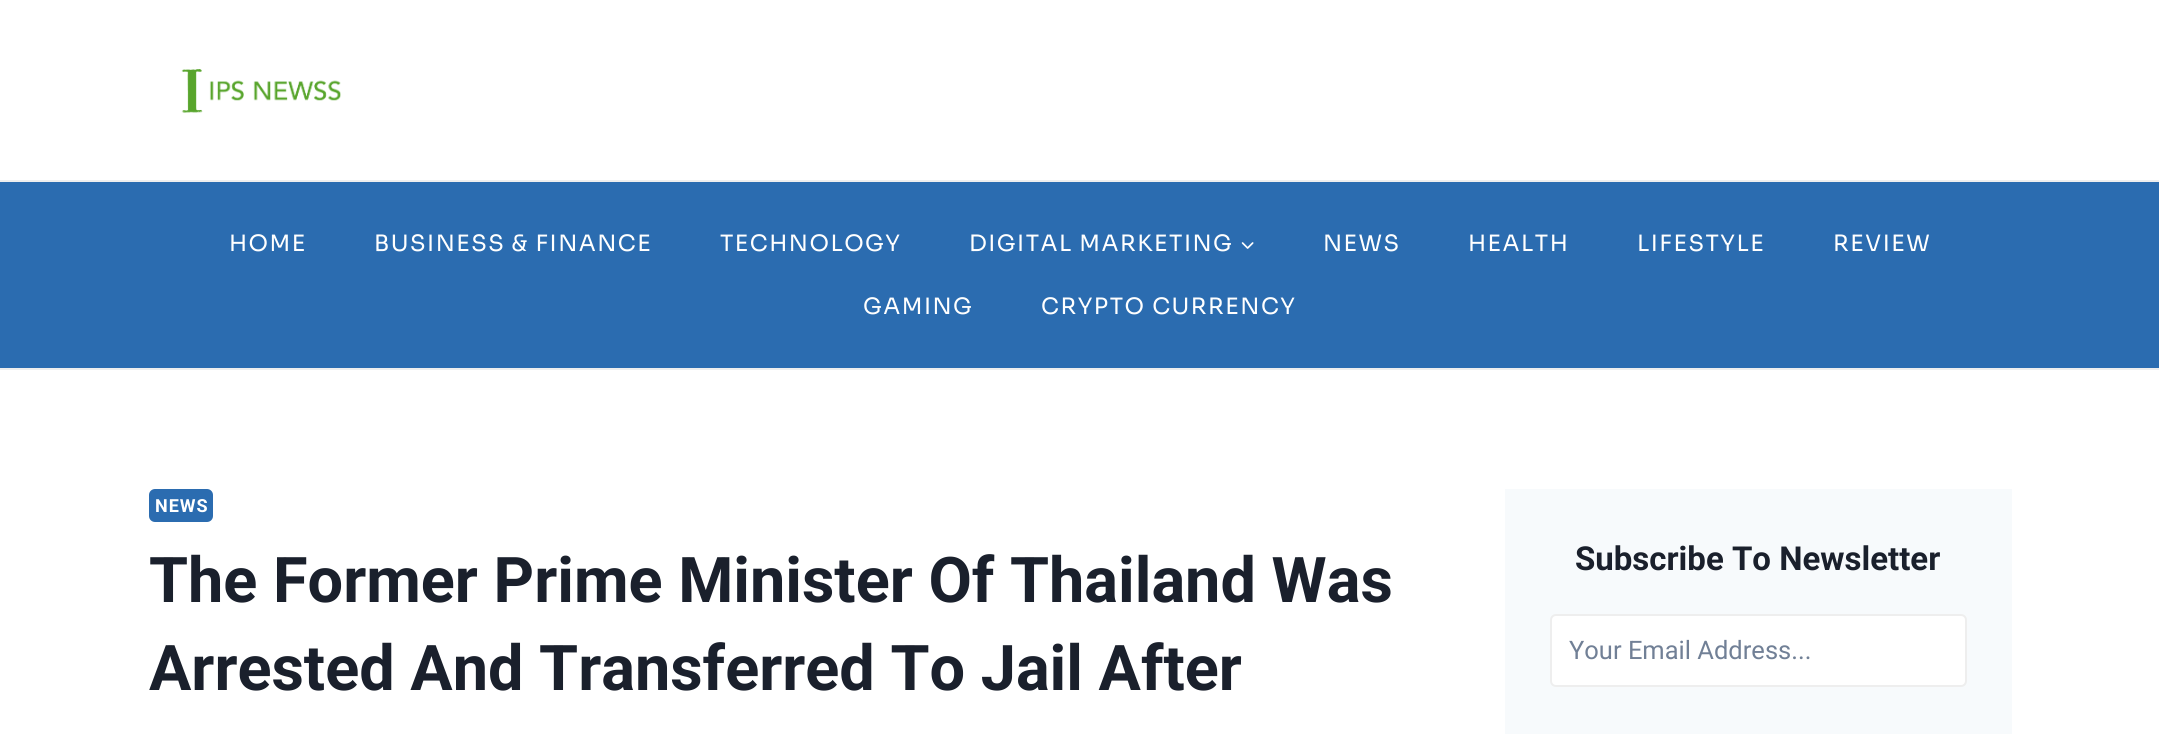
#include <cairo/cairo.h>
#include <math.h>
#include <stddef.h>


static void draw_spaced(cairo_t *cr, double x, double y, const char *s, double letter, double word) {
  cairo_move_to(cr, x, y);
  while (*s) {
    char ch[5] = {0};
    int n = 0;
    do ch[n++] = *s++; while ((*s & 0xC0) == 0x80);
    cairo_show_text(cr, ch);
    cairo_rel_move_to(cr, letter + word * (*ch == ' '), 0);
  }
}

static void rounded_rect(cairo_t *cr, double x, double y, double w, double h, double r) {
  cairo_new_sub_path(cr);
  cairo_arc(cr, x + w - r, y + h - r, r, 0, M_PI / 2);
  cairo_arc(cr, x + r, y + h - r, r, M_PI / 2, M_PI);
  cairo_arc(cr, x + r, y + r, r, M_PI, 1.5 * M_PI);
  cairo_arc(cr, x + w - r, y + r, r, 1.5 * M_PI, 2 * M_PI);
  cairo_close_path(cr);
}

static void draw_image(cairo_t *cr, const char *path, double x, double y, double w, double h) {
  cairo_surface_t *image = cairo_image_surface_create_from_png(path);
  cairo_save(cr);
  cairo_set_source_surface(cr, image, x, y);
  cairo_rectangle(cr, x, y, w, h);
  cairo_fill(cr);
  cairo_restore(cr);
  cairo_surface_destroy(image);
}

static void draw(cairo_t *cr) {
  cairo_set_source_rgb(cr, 1, 1, 1);
  cairo_paint(cr);
  draw_image(cr, "images/1.png", 181, 69, 160, 44);
  cairo_set_source_rgb(cr, 43 / 255.0, 108 / 255.0, 176 / 255.0);
  cairo_rectangle(cr, 0, 182, 2159, 186);
  cairo_fill(cr);
  cairo_set_source_rgb(cr, 238 / 255.0, 238 / 255.0, 238 / 255.0);
  cairo_rectangle(cr, 0, 180, 2159, 2);
  cairo_fill(cr);
  cairo_rectangle(cr, 0, 368, 2159, 2);
  cairo_fill(cr);
  draw_image(cr, "images/2.png", 1241, 242, 13, 7);
  cairo_set_source_rgb(cr, 43 / 255.0, 108 / 255.0, 176 / 255.0);
  rounded_rect(cr, 149, 489, 64, 33, 6);
  cairo_fill(cr);
  cairo_set_source_rgb(cr, 247 / 255.0, 250 / 255.0, 252 / 255.0);
  cairo_rectangle(cr, 1505, 489, 507, 245);
  cairo_fill(cr);
  cairo_set_source_rgb(cr, 1, 1, 1);
  rounded_rect(cr, 1551, 615, 415, 71, 5);
  cairo_fill_preserve(cr);
  cairo_set_source_rgb(cr, 238 / 255.0, 238 / 255.0, 238 / 255.0);
  cairo_stroke(cr);
  cairo_select_font_face(cr, "Sora", CAIRO_FONT_SLANT_NORMAL, CAIRO_FONT_WEIGHT_NORMAL);
  cairo_set_font_size(cr, 22.5);
  cairo_set_source_rgb(cr, 1, 1, 1);
  draw_spaced(cr, 229, 251, "HOME", 1.5, 0);
  draw_spaced(cr, 374, 251, "BUSINESS & FINANCE", 1.5, 0);
  draw_spaced(cr, 720, 251, "TECHNOLOGY", 1.5, 0);
  draw_spaced(cr, 969, 251, "DIGITAL MARKETING", 1.5, 0);
  draw_spaced(cr, 1323, 251, "NEWS", 1.5, 0);
  draw_spaced(cr, 1468, 251, "HEALTH", 1.5, 0);
  draw_spaced(cr, 1637, 251, "LIFESTYLE", 1.5, 0);
  draw_spaced(cr, 1833, 251, "REVIEW", 1.5, 0);
  draw_spaced(cr, 863, 314, "GAMING", 1.5, 0);
  draw_spaced(cr, 1041, 314, "CRYPTO CURRENCY", 1.5, 0);
  cairo_select_font_face(cr, "Roboto", CAIRO_FONT_SLANT_NORMAL, CAIRO_FONT_WEIGHT_BOLD);
  cairo_set_font_size(cr, 18);
  draw_spaced(cr, 155, 512, "NEWS", 1, 0);
  cairo_set_font_size(cr, 63);
  cairo_set_source_rgb(cr, 26 / 255.0, 32 / 255.0, 44 / 255.0);
  cairo_move_to(cr, 149, 602);
  cairo_show_text(cr, "The Former Prime Minister Of Thailand Was");
  cairo_move_to(cr, 149, 690);
  cairo_show_text(cr, "Arrested And Transferred To Jail After");
  cairo_set_font_size(cr, 33);
  cairo_move_to(cr, 1575, 570);
  cairo_show_text(cr, "Subscribe To Newsletter");
  cairo_select_font_face(cr, "Roboto", CAIRO_FONT_SLANT_NORMAL, CAIRO_FONT_WEIGHT_NORMAL);
  cairo_set_font_size(cr, 25.5);
  cairo_set_source_rgb(cr, 113 / 255.0, 128 / 255.0, 150 / 255.0);
  cairo_move_to(cr, 1569, 659);
  cairo_show_text(cr, "Your Email Address...");
}

int main(void) {
  cairo_surface_t *surface = cairo_image_surface_create(CAIRO_FORMAT_RGB24, 2159, 734);
  cairo_t *cr = cairo_create(surface);
  cairo_font_options_t *options = cairo_font_options_create();
  cairo_font_options_set_hint_metrics(options, CAIRO_HINT_METRICS_OFF);
  cairo_font_options_set_hint_style(options, CAIRO_HINT_STYLE_NONE);
  cairo_set_font_options(cr, options);
  cairo_set_miter_limit(cr, 4);
  draw(cr);
  cairo_surface_write_to_png(surface, "out.png");
  cairo_font_options_destroy(options);
  cairo_destroy(cr);
  cairo_surface_destroy(surface);
  return 0;
}
